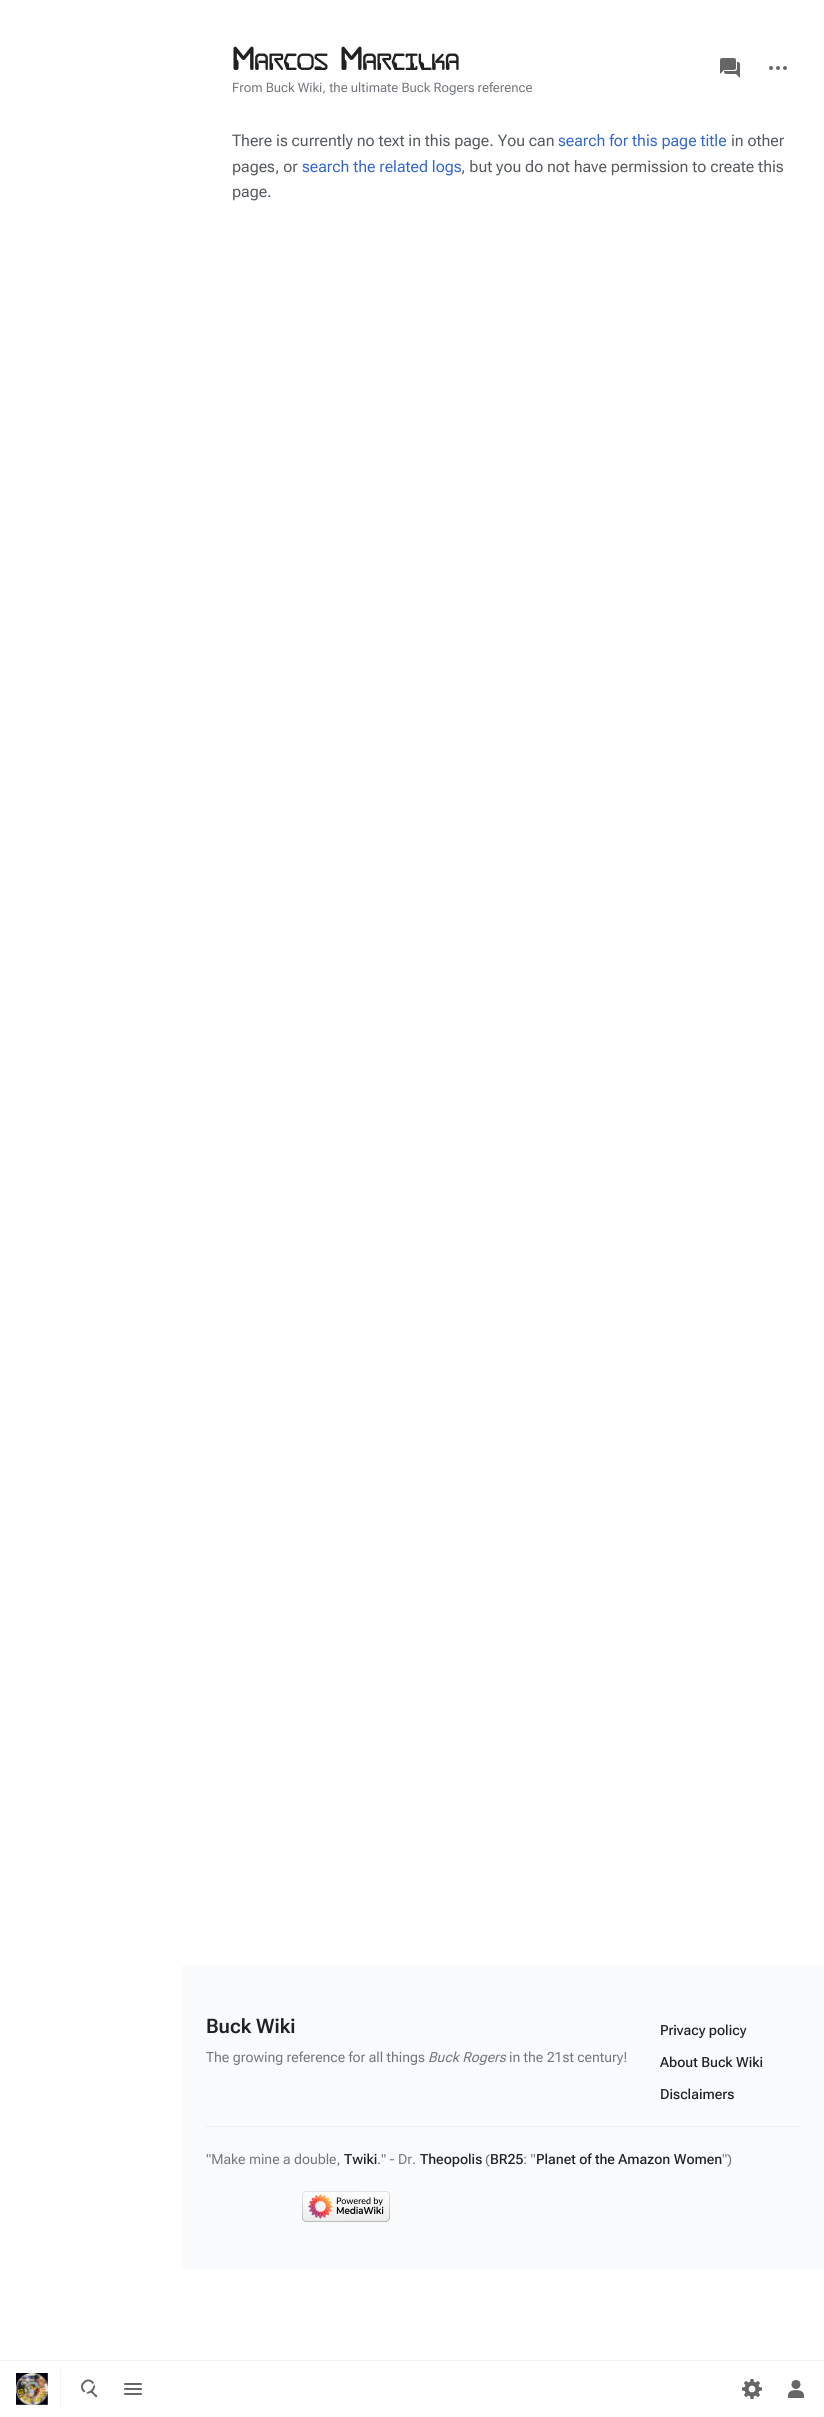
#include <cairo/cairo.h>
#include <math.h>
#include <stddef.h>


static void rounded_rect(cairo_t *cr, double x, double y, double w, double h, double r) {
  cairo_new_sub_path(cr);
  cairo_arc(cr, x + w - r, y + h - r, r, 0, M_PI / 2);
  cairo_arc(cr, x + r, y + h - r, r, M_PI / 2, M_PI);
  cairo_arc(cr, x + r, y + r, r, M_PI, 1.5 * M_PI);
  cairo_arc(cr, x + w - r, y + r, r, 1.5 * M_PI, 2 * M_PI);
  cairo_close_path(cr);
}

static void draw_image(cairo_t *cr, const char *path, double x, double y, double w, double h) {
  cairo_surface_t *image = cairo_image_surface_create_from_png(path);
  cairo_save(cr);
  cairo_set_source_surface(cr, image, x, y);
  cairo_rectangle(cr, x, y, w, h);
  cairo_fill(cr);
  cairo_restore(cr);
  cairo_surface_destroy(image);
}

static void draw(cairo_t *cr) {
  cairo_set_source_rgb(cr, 1, 1, 1);
  cairo_paint(cr);
  draw_image(cr, "images/1.png", 720, 58, 20, 20);
  draw_image(cr, "images/2.png", 769, 66, 18, 4);
  cairo_set_source_rgb(cr, 249 / 255.0, 250 / 255.0, 251 / 255.0);
  cairo_rectangle(cr, 182, 1966, 642, 304);
  cairo_fill(cr);
  cairo_set_source_rgb(cr, 237 / 255.0, 238 / 255.0, 238 / 255.0);
  cairo_rectangle(cr, 206, 2126, 594, 1);
  cairo_fill(cr);
  draw_image(cr, "images/3.png", 302, 2191, 88, 31);
  cairo_set_source_rgb(cr, 242 / 255.0, 242 / 255.0, 242 / 255.0);
  cairo_rectangle(cr, 0, 2360, 824, 1);
  cairo_fill(cr);
  cairo_rectangle(cr, 60, 2369, 1, 40);
  cairo_fill(cr);
  draw_image(cr, "images/4.png", 16, 2373, 32, 32);
  cairo_set_source_rgb(cr, 102 / 255.0, 102 / 255.0, 102 / 255.0);
  cairo_new_path(cr);
  cairo_move_to(cr, 91, 2391);
  cairo_curve_to(cr, 92.5, 2390, 94, 2392.5, 94.5, 2393.5);
  cairo_curve_to(cr, 95.5, 2394, 98, 2395.5, 97, 2397);
  cairo_curve_to(cr, 95.5, 2398, 94, 2395.5, 93.5, 2394.5);
  cairo_curve_to(cr, 92.5, 2394, 90, 2392.5, 91, 2391);
  cairo_close_path(cr);
  cairo_fill(cr);
  cairo_new_path(cr);
  cairo_move_to(cr, 84, 2382.5);
  cairo_curve_to(cr, 89.5, 2376.5, 98, 2385, 92, 2390.5);
  cairo_curve_to(cr, 86.5, 2396.5, 78, 2388, 84, 2382.5);
  cairo_close_path(cr);
  cairo_stroke(cr);
  cairo_set_source_rgb(cr, 1, 1, 1);
  cairo_new_path(cr);
  cairo_move_to(cr, 83.5, 2394.5);
  cairo_curve_to(cr, 83, 2394.5, 83, 2393.5, 83.5, 2393);
  cairo_line_to(cr, 93, 2383.5);
  cairo_curve_to(cr, 93.5, 2383, 94.5, 2383, 94.5, 2383.5);
  cairo_curve_to(cr, 95, 2383.5, 95, 2384.5, 94.5, 2385);
  cairo_line_to(cr, 85, 2394.5);
  cairo_curve_to(cr, 84.5, 2395, 83.5, 2395, 83.5, 2394.5);
  cairo_close_path(cr);
  cairo_fill(cr);
  cairo_set_source_rgb(cr, 102 / 255.0, 102 / 255.0, 102 / 255.0);
  rounded_rect(cr, 124, 2383, 18, 2, 1);
  cairo_fill(cr);
  rounded_rect(cr, 124, 2388, 18, 2, 1);
  cairo_fill(cr);
  rounded_rect(cr, 124, 2393, 18, 2, 1);
  cairo_fill(cr);
  draw_image(cr, "images/5.png", 742, 2379, 20, 20);
  draw_image(cr, "images/6.png", 788, 2380, 16, 18);
  cairo_select_font_face(cr, "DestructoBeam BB", CAIRO_FONT_SLANT_NORMAL, CAIRO_FONT_WEIGHT_BOLD);
  cairo_set_font_size(cr, 32);
  cairo_set_source_rgb(cr, 32 / 255.0, 33 / 255.0, 34 / 255.0);
  cairo_move_to(cr, 232, 70);
  cairo_show_text(cr, "M");
  cairo_set_font_size(cr, 22.5);
  cairo_move_to(cr, 254, 70);
  cairo_show_text(cr, "ARCOS");
  cairo_set_font_size(cr, 32);
  cairo_move_to(cr, 340, 70);
  cairo_show_text(cr, "M");
  cairo_set_font_size(cr, 22.5);
  cairo_move_to(cr, 362, 70);
  cairo_show_text(cr, "ARCILKA");
  cairo_select_font_face(cr, "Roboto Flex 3", CAIRO_FONT_SLANT_NORMAL, CAIRO_FONT_WEIGHT_NORMAL);
  cairo_set_font_size(cr, 13);
  cairo_set_source_rgb(cr, 114 / 255.0, 119 / 255.0, 125 / 255.0);
  cairo_move_to(cr, 232, 92);
  cairo_show_text(cr, "From Buck Wiki, the ultimate Buck Rogers reference");
  cairo_select_font_face(cr, "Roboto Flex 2", CAIRO_FONT_SLANT_NORMAL, CAIRO_FONT_WEIGHT_NORMAL);
  cairo_set_font_size(cr, 16);
  cairo_set_source_rgb(cr, 84 / 255.0, 89 / 255.0, 93 / 255.0);
  cairo_move_to(cr, 232, 146);
  cairo_show_text(cr, "There is currently no text in this page. You can");
  cairo_set_source_rgb(cr, 51 / 255.0, 102 / 255.0, 204 / 255.0);
  cairo_move_to(cr, 558, 146);
  cairo_show_text(cr, "search for this page title");
  cairo_set_source_rgb(cr, 84 / 255.0, 89 / 255.0, 93 / 255.0);
  cairo_move_to(cr, 731, 146);
  cairo_show_text(cr, "in other");
  cairo_move_to(cr, 232, 172);
  cairo_show_text(cr, "pages, or");
  cairo_set_source_rgb(cr, 51 / 255.0, 102 / 255.0, 204 / 255.0);
  cairo_move_to(cr, 302, 172);
  cairo_show_text(cr, "search the related logs");
  cairo_set_source_rgb(cr, 84 / 255.0, 89 / 255.0, 93 / 255.0);
  cairo_move_to(cr, 461, 172);
  cairo_show_text(cr, ", but you do not have permission to create this");
  cairo_move_to(cr, 232, 197);
  cairo_show_text(cr, "page.");
  cairo_select_font_face(cr, "Roboto Flex SemiBold", CAIRO_FONT_SLANT_NORMAL, CAIRO_FONT_WEIGHT_NORMAL);
  cairo_set_font_size(cr, 20);
  cairo_set_source_rgb(cr, 32 / 255.0, 33 / 255.0, 34 / 255.0);
  cairo_move_to(cr, 206, 2033);
  cairo_show_text(cr, "Buck Wiki");
  cairo_select_font_face(cr, "Roboto Flex", CAIRO_FONT_SLANT_NORMAL, CAIRO_FONT_WEIGHT_NORMAL);
  cairo_set_font_size(cr, 14);
  cairo_set_source_rgb(cr, 114 / 255.0, 119 / 255.0, 125 / 255.0);
  cairo_move_to(cr, 206, 2062);
  cairo_show_text(cr, "The growing reference for all things");
  cairo_select_font_face(cr, "Roboto Flex", CAIRO_FONT_SLANT_ITALIC, CAIRO_FONT_WEIGHT_NORMAL);
  cairo_move_to(cr, 428, 2062);
  cairo_show_text(cr, "Buck Rogers");
  cairo_select_font_face(cr, "Roboto Flex", CAIRO_FONT_SLANT_NORMAL, CAIRO_FONT_WEIGHT_NORMAL);
  cairo_move_to(cr, 509, 2062);
  cairo_show_text(cr, "in the 21st century!");
  cairo_select_font_face(cr, "Roboto Flex Medium", CAIRO_FONT_SLANT_NORMAL, CAIRO_FONT_WEIGHT_NORMAL);
  cairo_set_source_rgb(cr, 32 / 255.0, 33 / 255.0, 34 / 255.0);
  cairo_move_to(cr, 660, 2035);
  cairo_show_text(cr, "Privacy policy");
  cairo_move_to(cr, 660, 2067);
  cairo_show_text(cr, "About Buck Wiki");
  cairo_move_to(cr, 660, 2099);
  cairo_show_text(cr, "Disclaimers");
  cairo_select_font_face(cr, "Roboto Flex", CAIRO_FONT_SLANT_NORMAL, CAIRO_FONT_WEIGHT_NORMAL);
  cairo_set_source_rgb(cr, 114 / 255.0, 119 / 255.0, 125 / 255.0);
  cairo_move_to(cr, 206, 2164);
  cairo_show_text(cr, "\"Make mine a double,");
  cairo_select_font_face(cr, "Roboto Flex Medium", CAIRO_FONT_SLANT_NORMAL, CAIRO_FONT_WEIGHT_NORMAL);
  cairo_set_source_rgb(cr, 32 / 255.0, 33 / 255.0, 34 / 255.0);
  cairo_move_to(cr, 344, 2164);
  cairo_show_text(cr, "Twiki");
  cairo_select_font_face(cr, "Roboto Flex", CAIRO_FONT_SLANT_NORMAL, CAIRO_FONT_WEIGHT_NORMAL);
  cairo_set_source_rgb(cr, 114 / 255.0, 119 / 255.0, 125 / 255.0);
  cairo_move_to(cr, 377, 2164);
  cairo_show_text(cr, ".\" - Dr.");
  cairo_select_font_face(cr, "Roboto Flex Medium", CAIRO_FONT_SLANT_NORMAL, CAIRO_FONT_WEIGHT_NORMAL);
  cairo_set_source_rgb(cr, 32 / 255.0, 33 / 255.0, 34 / 255.0);
  cairo_move_to(cr, 420, 2164);
  cairo_show_text(cr, "Theopolis");
  cairo_select_font_face(cr, "Roboto Flex", CAIRO_FONT_SLANT_NORMAL, CAIRO_FONT_WEIGHT_NORMAL);
  cairo_set_source_rgb(cr, 114 / 255.0, 119 / 255.0, 125 / 255.0);
  cairo_move_to(cr, 485, 2164);
  cairo_show_text(cr, "(");
  cairo_select_font_face(cr, "Roboto Flex Medium", CAIRO_FONT_SLANT_NORMAL, CAIRO_FONT_WEIGHT_NORMAL);
  cairo_set_source_rgb(cr, 32 / 255.0, 33 / 255.0, 34 / 255.0);
  cairo_move_to(cr, 490, 2164);
  cairo_show_text(cr, "BR25");
  cairo_select_font_face(cr, "Roboto Flex", CAIRO_FONT_SLANT_NORMAL, CAIRO_FONT_WEIGHT_NORMAL);
  cairo_set_source_rgb(cr, 114 / 255.0, 119 / 255.0, 125 / 255.0);
  cairo_move_to(cr, 523, 2164);
  cairo_show_text(cr, ": \"");
  cairo_select_font_face(cr, "Roboto Flex Medium", CAIRO_FONT_SLANT_NORMAL, CAIRO_FONT_WEIGHT_NORMAL);
  cairo_set_source_rgb(cr, 32 / 255.0, 33 / 255.0, 34 / 255.0);
  cairo_move_to(cr, 536, 2164);
  cairo_show_text(cr, "Planet of the Amazon Women");
  cairo_select_font_face(cr, "Roboto Flex", CAIRO_FONT_SLANT_NORMAL, CAIRO_FONT_WEIGHT_NORMAL);
  cairo_set_source_rgb(cr, 114 / 255.0, 119 / 255.0, 125 / 255.0);
  cairo_move_to(cr, 722, 2164);
  cairo_show_text(cr, "\")");
}

int main(void) {
  cairo_surface_t *surface = cairo_image_surface_create(CAIRO_FORMAT_RGB24, 824, 2417);
  cairo_t *cr = cairo_create(surface);
  cairo_font_options_t *options = cairo_font_options_create();
  cairo_font_options_set_hint_metrics(options, CAIRO_HINT_METRICS_OFF);
  cairo_font_options_set_hint_style(options, CAIRO_HINT_STYLE_NONE);
  cairo_set_font_options(cr, options);
  cairo_set_miter_limit(cr, 4);
  draw(cr);
  cairo_surface_write_to_png(surface, "out.png");
  cairo_font_options_destroy(options);
  cairo_destroy(cr);
  cairo_surface_destroy(surface);
  return 0;
}
